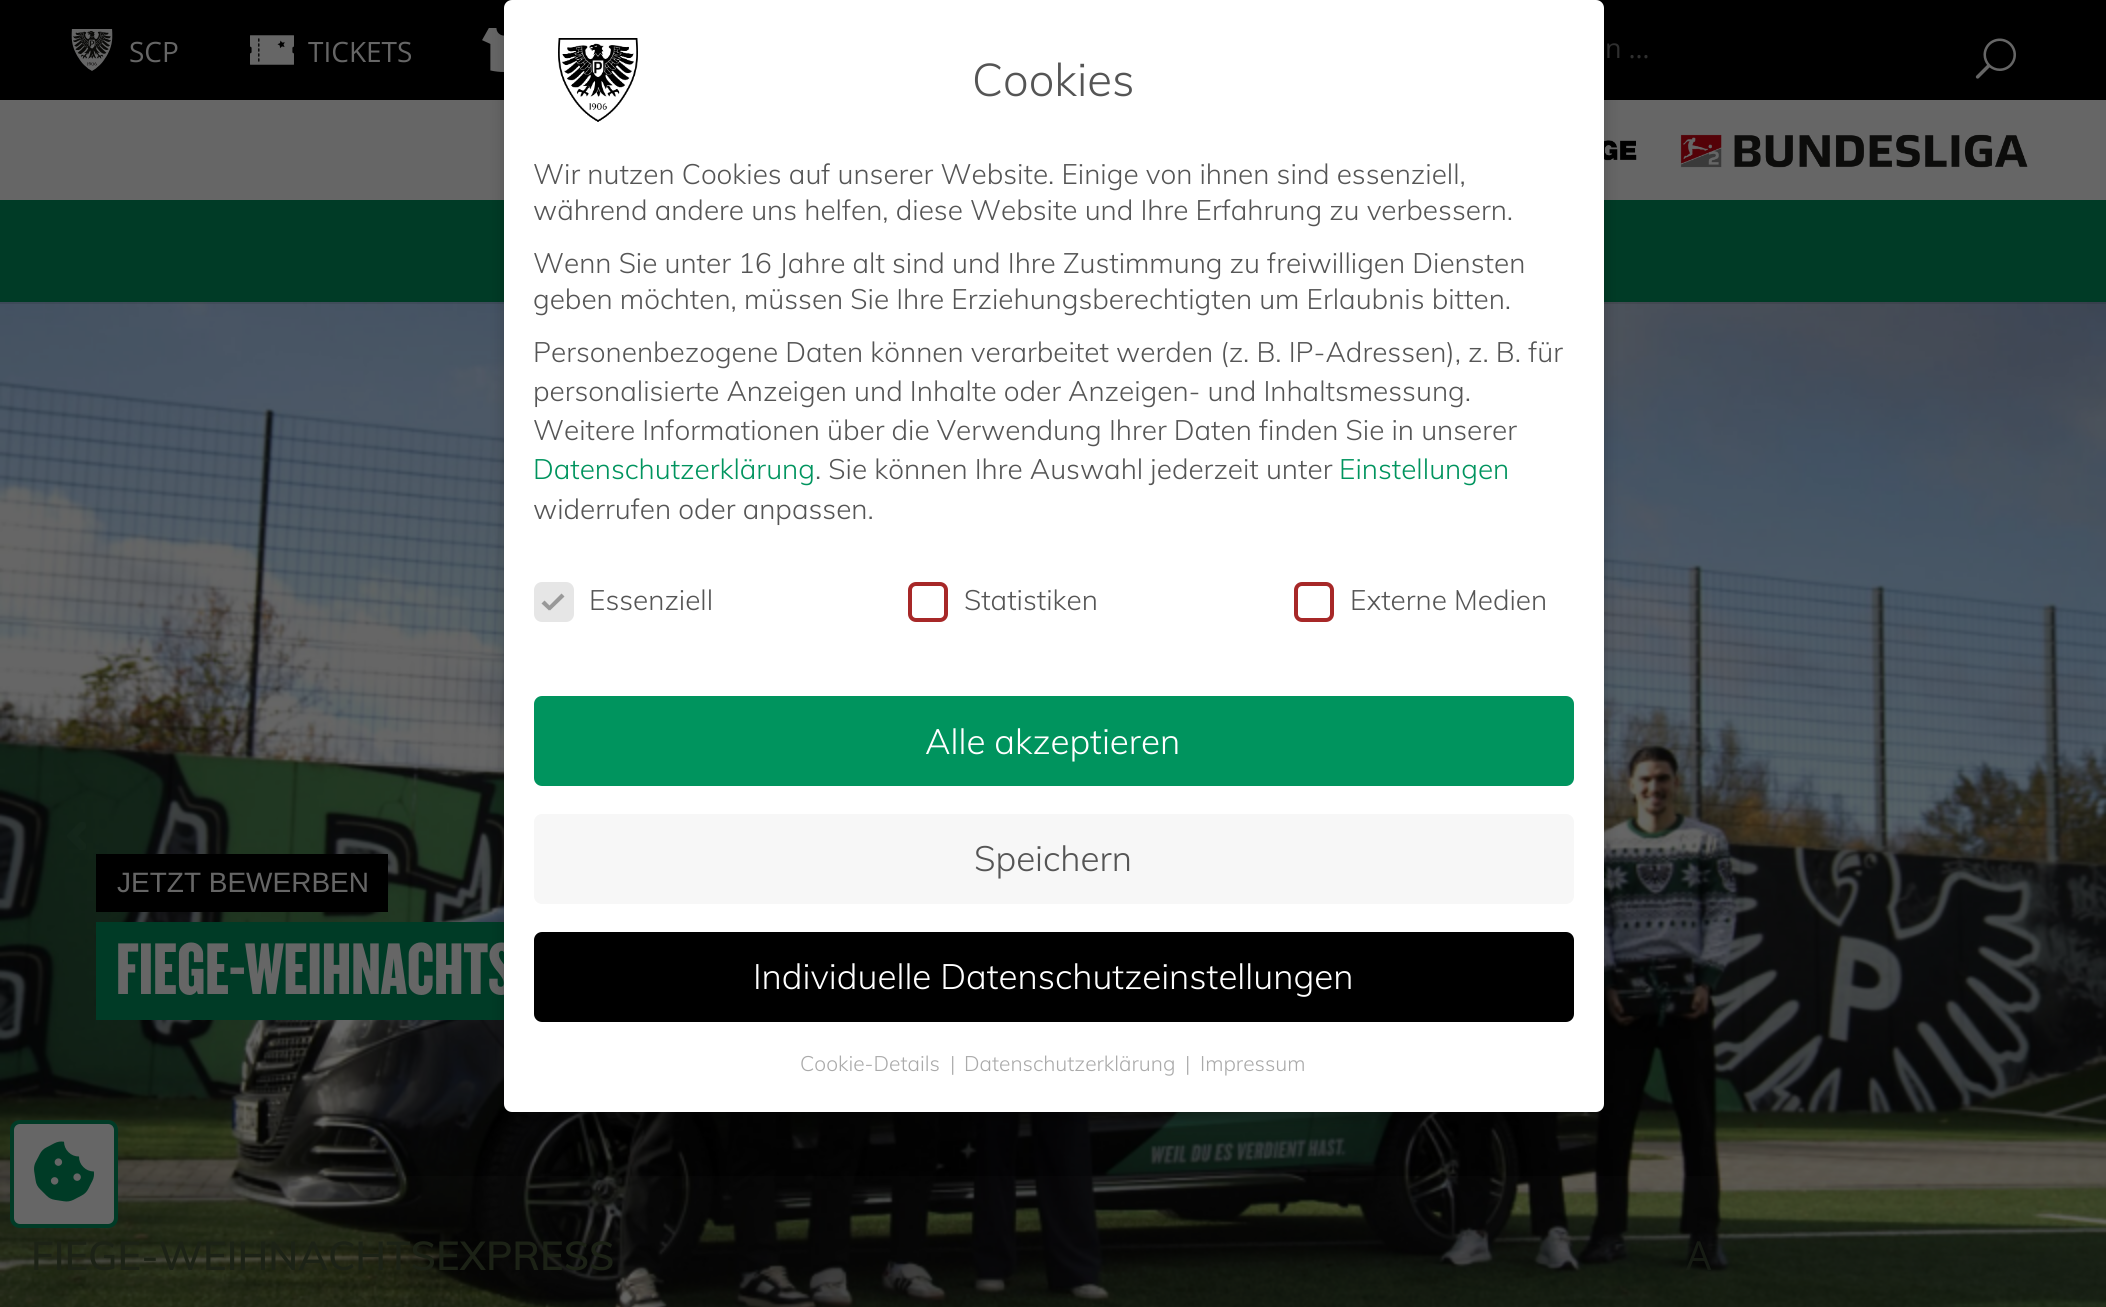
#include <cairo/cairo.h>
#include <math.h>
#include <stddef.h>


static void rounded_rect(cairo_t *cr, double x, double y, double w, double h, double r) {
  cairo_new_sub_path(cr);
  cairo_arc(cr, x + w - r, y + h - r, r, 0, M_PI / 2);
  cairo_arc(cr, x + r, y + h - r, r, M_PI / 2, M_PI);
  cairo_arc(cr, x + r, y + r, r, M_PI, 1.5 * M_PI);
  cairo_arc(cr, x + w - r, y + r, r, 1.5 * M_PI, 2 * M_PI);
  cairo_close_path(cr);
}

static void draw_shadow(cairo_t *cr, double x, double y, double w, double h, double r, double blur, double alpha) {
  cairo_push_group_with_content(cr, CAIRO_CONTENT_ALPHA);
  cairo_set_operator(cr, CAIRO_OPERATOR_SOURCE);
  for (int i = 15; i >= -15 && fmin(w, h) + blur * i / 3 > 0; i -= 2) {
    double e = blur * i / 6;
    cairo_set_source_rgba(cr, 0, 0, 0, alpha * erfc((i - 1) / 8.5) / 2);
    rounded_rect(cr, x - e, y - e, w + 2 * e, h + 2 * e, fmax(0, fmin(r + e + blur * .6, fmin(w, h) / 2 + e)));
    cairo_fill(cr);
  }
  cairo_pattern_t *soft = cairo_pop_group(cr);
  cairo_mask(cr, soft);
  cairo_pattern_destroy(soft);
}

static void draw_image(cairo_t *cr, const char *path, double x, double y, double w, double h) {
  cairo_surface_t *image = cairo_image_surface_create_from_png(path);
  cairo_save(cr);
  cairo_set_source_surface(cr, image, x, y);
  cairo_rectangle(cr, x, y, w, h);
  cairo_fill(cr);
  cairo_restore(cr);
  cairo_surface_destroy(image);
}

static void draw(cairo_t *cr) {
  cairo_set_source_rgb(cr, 1, 1, 1);
  cairo_paint(cr);
  draw_image(cr, "images/9.png", 0, 302, 2106, 1005);
  cairo_set_source_rgba(cr, 0, 0, 0, 0.1);
  cairo_rectangle(cr, 0, 302, 2106, 2);
  cairo_fill(cr);
  cairo_set_source_rgb(cr, 0, 59 / 255.0, 38 / 255.0);
  cairo_rectangle(cr, 0, 200, 2106, 102);
  cairo_fill(cr);
  cairo_set_source_rgb(cr, 0, 0, 0);
  cairo_rectangle(cr, 0, 0, 2106, 100);
  cairo_fill(cr);
  draw_image(cr, "images/1.png", 71, 29, 42, 42);
  draw_image(cr, "images/2.png", 250, 35, 44, 30);
  draw_image(cr, "images/3.png", 482, 28, 22, 44);
  draw_image(cr, "images/4.png", 1975, 38, 41, 41);
  cairo_set_source_rgb(cr, 102 / 255.0, 102 / 255.0, 102 / 255.0);
  cairo_rectangle(cr, 0, 100, 2106, 100);
  cairo_fill(cr);
  draw_image(cr, "images/5.png", 1604, 140, 33, 21);
  draw_image(cr, "images/6.png", 1680, 134, 348, 34);
  draw_image(cr, "images/7.png", 67, 822, 19, 28);
  draw_image(cr, "images/8.png", 2018, 822, 20, 28);
  cairo_set_source_rgb(cr, 0, 0, 0);
  cairo_rectangle(cr, 96, 854, 292, 58);
  cairo_fill(cr);
  cairo_set_source_rgb(cr, 0, 59 / 255.0, 38 / 255.0);
  cairo_rectangle(cr, 96, 922, 408, 98);
  cairo_fill(cr);
  draw_image(cr, "images/10.png", 118, 942, 386, 53);
  cairo_set_source_rgba(cr, 99 / 255.0, 99 / 255.0, 99 / 255.0, 0.04);
  cairo_rectangle(cr, 0, 1176, 2106, 131);
  cairo_fill(cr);
  cairo_set_source_rgb(cr, 102 / 255.0, 102 / 255.0, 102 / 255.0);
  rounded_rect(cr, 12, 1122, 104, 104, 8);
  cairo_fill_preserve(cr);
  cairo_set_source_rgb(cr, 0, 59 / 255.0, 38 / 255.0);
  cairo_set_line_width(cr, 4);
  cairo_stroke(cr);
  draw_image(cr, "images/11.png", 34, 1141, 60, 61);
  cairo_set_source_rgb(cr, 0, 0, 0);
  draw_shadow(cr, 504, 8, 1100, 1112, 8, 8, 0.2);
  cairo_set_source_rgb(cr, 1, 1, 1);
  rounded_rect(cr, 504, 0, 1100, 1112, 8);
  cairo_fill(cr);
  draw_image(cr, "images/12.png", 558, 38, 80, 84);
  cairo_set_source_rgb(cr, 230 / 255.0, 230 / 255.0, 230 / 255.0);
  rounded_rect(cr, 536, 584, 36, 36, 6);
  cairo_fill_preserve(cr);
  cairo_stroke(cr);
  cairo_set_source_rgb(cr, 153 / 255.0, 153 / 255.0, 153 / 255.0);
  cairo_new_path(cr);
  cairo_move_to(cr, 561.5, 593.5);
  cairo_line_to(cr, 564.5, 596.5);
  cairo_line_to(cr, 550, 610.5);
  cairo_line_to(cr, 547.5, 607.5);
  cairo_close_path(cr);
  cairo_fill(cr);
  cairo_new_path(cr);
  cairo_move_to(cr, 544.5, 600.5);
  cairo_line_to(cr, 551.5, 607.5);
  cairo_line_to(cr, 549, 610.5);
  cairo_line_to(cr, 541.5, 603.5);
  cairo_close_path(cr);
  cairo_fill(cr);
  rounded_rect(cr, 910, 584, 36, 36, 6);
  cairo_set_source_rgb(cr, 167 / 255.0, 40 / 255.0, 40 / 255.0);
  cairo_stroke(cr);
  rounded_rect(cr, 1296, 584, 36, 36, 6);
  cairo_stroke(cr);
  cairo_set_source_rgb(cr, 0, 148 / 255.0, 94 / 255.0);
  rounded_rect(cr, 534, 696, 1040, 90, 8);
  cairo_fill(cr);
  cairo_set_source_rgb(cr, 247 / 255.0, 247 / 255.0, 247 / 255.0);
  rounded_rect(cr, 534, 814, 1040, 90, 8);
  cairo_fill(cr);
  cairo_set_source_rgb(cr, 0, 0, 0);
  rounded_rect(cr, 534, 932, 1040, 90, 8);
  cairo_fill(cr);
  cairo_select_font_face(cr, "Open Sans", CAIRO_FONT_SLANT_NORMAL, CAIRO_FONT_WEIGHT_NORMAL);
  cairo_set_font_size(cr, 28);
  cairo_set_source_rgb(cr, 102 / 255.0, 102 / 255.0, 102 / 255.0);
  cairo_move_to(cr, 129, 62);
  cairo_show_text(cr, "SCP");
  cairo_move_to(cr, 308, 62);
  cairo_show_text(cr, "TICKETS");
  cairo_set_font_size(cr, 27);
  cairo_set_source_rgb(cr, 47 / 255.0, 47 / 255.0, 47 / 255.0);
  cairo_move_to(cr, 1605, 58);
  cairo_show_text(cr, "n …");
  cairo_select_font_face(cr, "Liberation Sans", CAIRO_FONT_SLANT_NORMAL, CAIRO_FONT_WEIGHT_NORMAL);
  cairo_set_font_size(cr, 28);
  cairo_set_source_rgb(cr, 102 / 255.0, 102 / 255.0, 102 / 255.0);
  cairo_move_to(cr, 117, 892);
  cairo_show_text(cr, "JETZT BEWERBEN");
  cairo_select_font_face(cr, "Muli SemiBold", CAIRO_FONT_SLANT_NORMAL, CAIRO_FONT_WEIGHT_NORMAL);
  cairo_set_font_size(cr, 40);
  cairo_set_source_rgb(cr, 28 / 255.0, 34 / 255.0, 22 / 255.0);
  cairo_move_to(cr, 31, 1270);
  cairo_show_text(cr, "FIEGE-WEIHNACHTSEXPRESS");
  cairo_select_font_face(cr, "Open Sans", CAIRO_FONT_SLANT_NORMAL, CAIRO_FONT_WEIGHT_NORMAL);
  cairo_set_source_rgb(cr, 23 / 255.0, 28 / 255.0, 20 / 255.0);
  cairo_move_to(cr, 1686, 1270);
  cairo_show_text(cr, "A");
  cairo_select_font_face(cr, "Muli Light", CAIRO_FONT_SLANT_NORMAL, CAIRO_FONT_WEIGHT_NORMAL);
  cairo_set_font_size(cr, 45.5);
  cairo_set_source_rgb(cr, 85 / 255.0, 85 / 255.0, 85 / 255.0);
  cairo_move_to(cr, 972, 96);
  cairo_show_text(cr, "Cookies");
  cairo_set_font_size(cr, 28);
  cairo_move_to(cr, 533, 184);
  cairo_show_text(cr, "Wir nutzen Cookies auf unserer Website. Einige von ihnen sind essenziell,");
  cairo_move_to(cr, 533, 220);
  cairo_show_text(cr, "während andere uns helfen, diese Website und Ihre Erfahrung zu verbessern.");
  cairo_move_to(cr, 533, 273);
  cairo_show_text(cr, "Wenn Sie unter 16 Jahre alt sind und Ihre Zustimmung zu freiwilligen Diensten");
  cairo_move_to(cr, 533, 309);
  cairo_show_text(cr, "geben möchten, müssen Sie Ihre Erziehungsberechtigten um Erlaubnis bitten.");
  cairo_move_to(cr, 533, 362);
  cairo_show_text(cr, "Personenbezogene Daten können verarbeitet werden (z. B. IP-Adressen), z. B. für");
  cairo_move_to(cr, 533, 401);
  cairo_show_text(cr, "personalisierte Anzeigen und Inhalte oder Anzeigen- und Inhaltsmessung.");
  cairo_move_to(cr, 533, 440);
  cairo_show_text(cr, "Weitere Informationen über die Verwendung Ihrer Daten finden Sie in unserer");
  cairo_set_source_rgb(cr, 0, 148 / 255.0, 94 / 255.0);
  cairo_move_to(cr, 533, 479);
  cairo_show_text(cr, "Datenschutzerklärung");
  cairo_set_source_rgb(cr, 85 / 255.0, 85 / 255.0, 85 / 255.0);
  cairo_move_to(cr, 815, 479);
  cairo_show_text(cr, ". Sie können Ihre Auswahl jederzeit unter");
  cairo_set_source_rgb(cr, 0, 148 / 255.0, 94 / 255.0);
  cairo_move_to(cr, 1339, 479);
  cairo_show_text(cr, "Einstellungen");
  cairo_set_source_rgb(cr, 85 / 255.0, 85 / 255.0, 85 / 255.0);
  cairo_move_to(cr, 533, 519);
  cairo_show_text(cr, "widerrufen oder anpassen.");
  cairo_move_to(cr, 589, 610);
  cairo_show_text(cr, "Essenziell");
  cairo_move_to(cr, 964, 610);
  cairo_show_text(cr, "Statistiken");
  cairo_move_to(cr, 1350, 610);
  cairo_show_text(cr, "Externe Medien");
  cairo_set_font_size(cr, 35);
  cairo_set_source_rgb(cr, 1, 1, 1);
  cairo_move_to(cr, 925, 754);
  cairo_show_text(cr, "Alle akzeptieren");
  cairo_set_source_rgb(cr, 85 / 255.0, 85 / 255.0, 85 / 255.0);
  cairo_move_to(cr, 974, 871);
  cairo_show_text(cr, "Speichern");
  cairo_set_source_rgb(cr, 1, 1, 1);
  cairo_move_to(cr, 753, 989);
  cairo_show_text(cr, "Individuelle Datenschutzeinstellungen");
  cairo_set_font_size(cr, 21);
  cairo_set_source_rgb(cr, 170 / 255.0, 170 / 255.0, 170 / 255.0);
  cairo_move_to(cr, 800, 1071);
  cairo_show_text(cr, "Cookie-Details");
  cairo_move_to(cr, 950, 1071);
  cairo_show_text(cr, "|");
  cairo_move_to(cr, 964, 1071);
  cairo_show_text(cr, "Datenschutzerklärung");
  cairo_move_to(cr, 1185, 1071);
  cairo_show_text(cr, "|");
  cairo_move_to(cr, 1200, 1071);
  cairo_show_text(cr, "Impressum");
}

int main(void) {
  cairo_surface_t *surface = cairo_image_surface_create(CAIRO_FORMAT_RGB24, 2106, 1307);
  cairo_t *cr = cairo_create(surface);
  cairo_font_options_t *options = cairo_font_options_create();
  cairo_font_options_set_hint_metrics(options, CAIRO_HINT_METRICS_OFF);
  cairo_font_options_set_hint_style(options, CAIRO_HINT_STYLE_NONE);
  cairo_set_font_options(cr, options);
  cairo_set_miter_limit(cr, 4);
  draw(cr);
  cairo_surface_write_to_png(surface, "out.png");
  cairo_font_options_destroy(options);
  cairo_destroy(cr);
  cairo_surface_destroy(surface);
  return 0;
}
